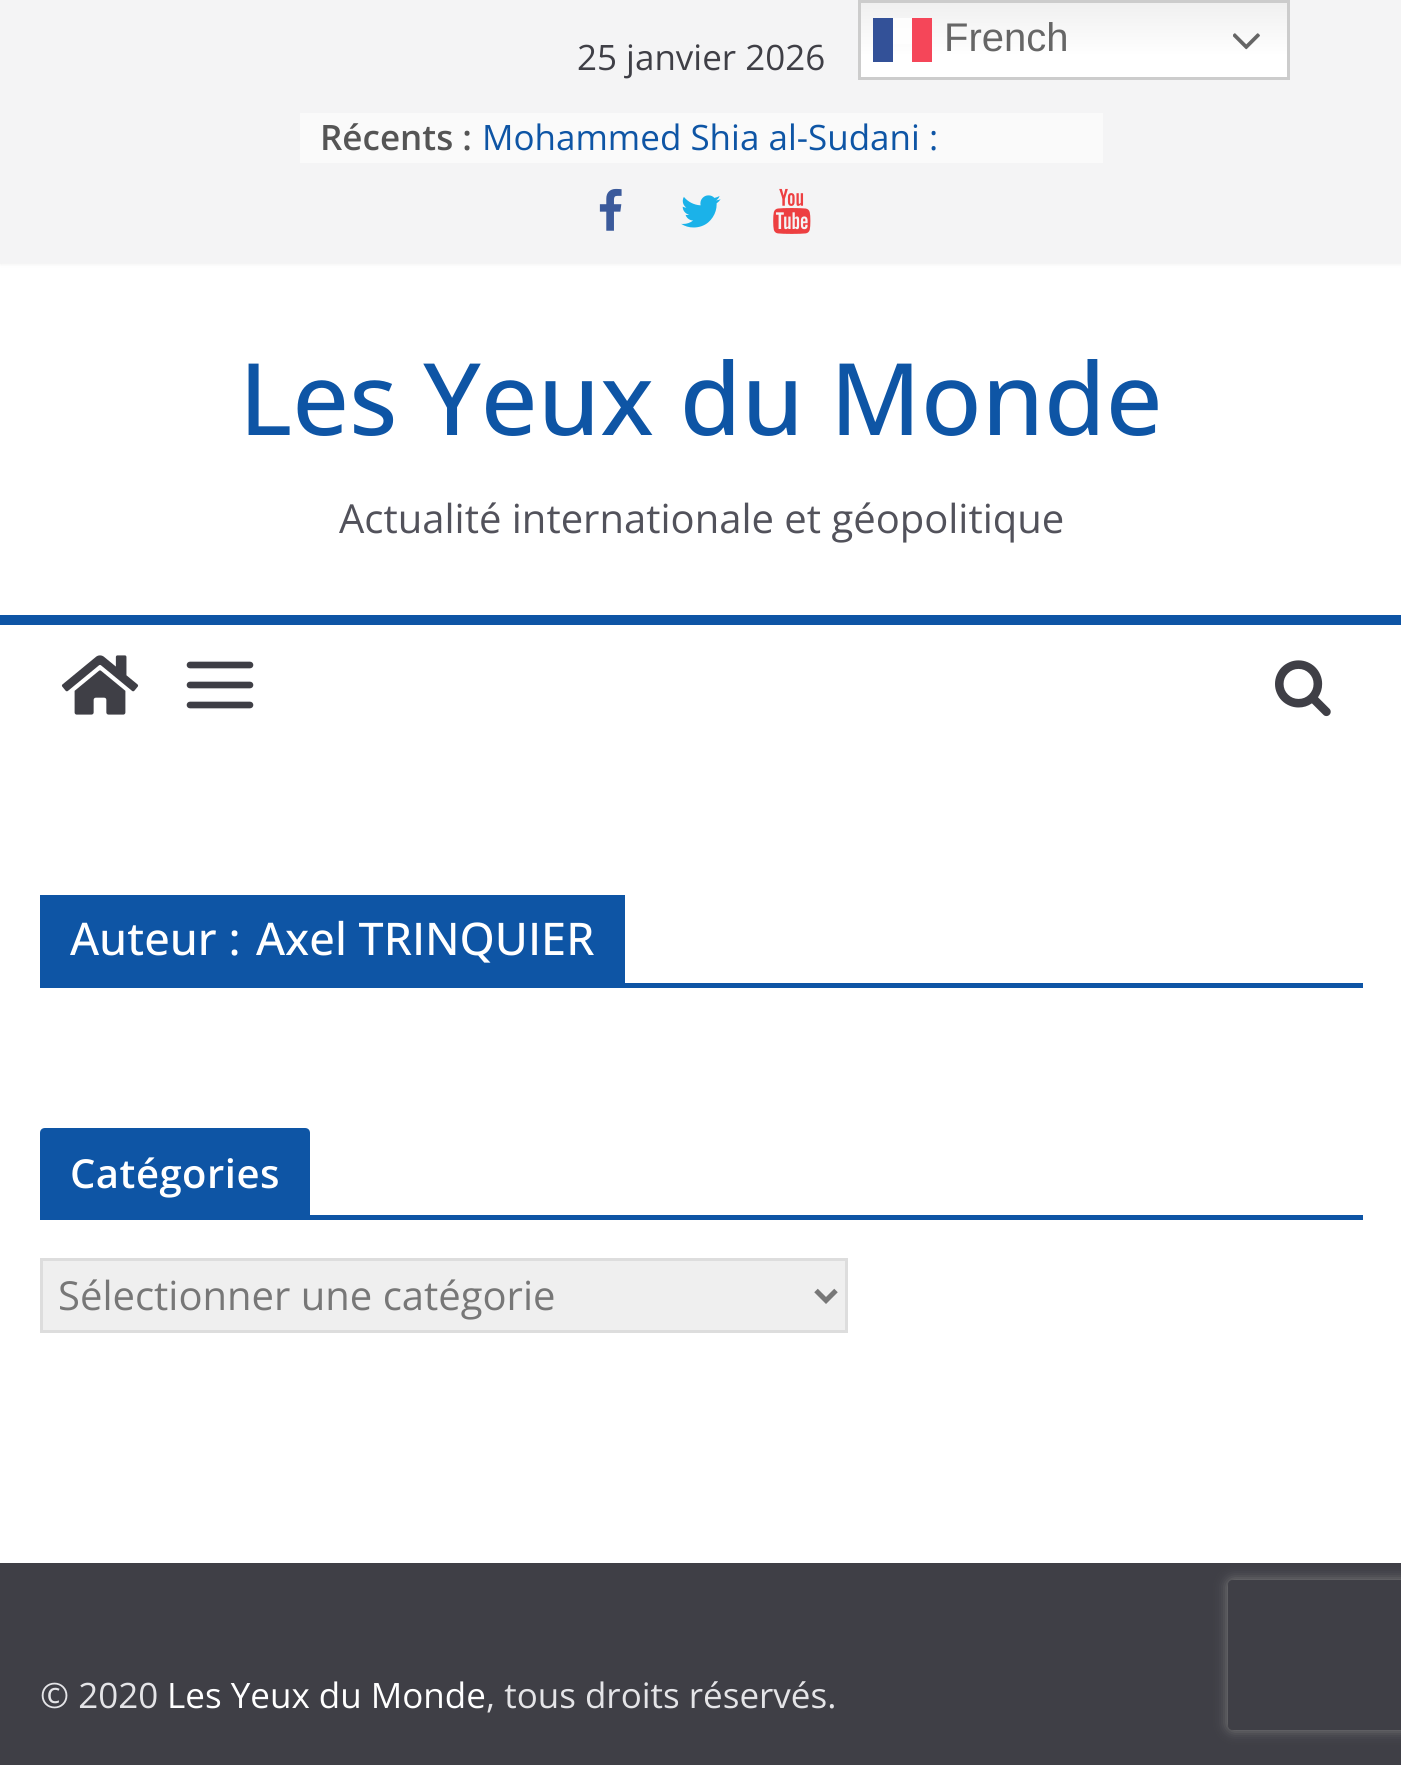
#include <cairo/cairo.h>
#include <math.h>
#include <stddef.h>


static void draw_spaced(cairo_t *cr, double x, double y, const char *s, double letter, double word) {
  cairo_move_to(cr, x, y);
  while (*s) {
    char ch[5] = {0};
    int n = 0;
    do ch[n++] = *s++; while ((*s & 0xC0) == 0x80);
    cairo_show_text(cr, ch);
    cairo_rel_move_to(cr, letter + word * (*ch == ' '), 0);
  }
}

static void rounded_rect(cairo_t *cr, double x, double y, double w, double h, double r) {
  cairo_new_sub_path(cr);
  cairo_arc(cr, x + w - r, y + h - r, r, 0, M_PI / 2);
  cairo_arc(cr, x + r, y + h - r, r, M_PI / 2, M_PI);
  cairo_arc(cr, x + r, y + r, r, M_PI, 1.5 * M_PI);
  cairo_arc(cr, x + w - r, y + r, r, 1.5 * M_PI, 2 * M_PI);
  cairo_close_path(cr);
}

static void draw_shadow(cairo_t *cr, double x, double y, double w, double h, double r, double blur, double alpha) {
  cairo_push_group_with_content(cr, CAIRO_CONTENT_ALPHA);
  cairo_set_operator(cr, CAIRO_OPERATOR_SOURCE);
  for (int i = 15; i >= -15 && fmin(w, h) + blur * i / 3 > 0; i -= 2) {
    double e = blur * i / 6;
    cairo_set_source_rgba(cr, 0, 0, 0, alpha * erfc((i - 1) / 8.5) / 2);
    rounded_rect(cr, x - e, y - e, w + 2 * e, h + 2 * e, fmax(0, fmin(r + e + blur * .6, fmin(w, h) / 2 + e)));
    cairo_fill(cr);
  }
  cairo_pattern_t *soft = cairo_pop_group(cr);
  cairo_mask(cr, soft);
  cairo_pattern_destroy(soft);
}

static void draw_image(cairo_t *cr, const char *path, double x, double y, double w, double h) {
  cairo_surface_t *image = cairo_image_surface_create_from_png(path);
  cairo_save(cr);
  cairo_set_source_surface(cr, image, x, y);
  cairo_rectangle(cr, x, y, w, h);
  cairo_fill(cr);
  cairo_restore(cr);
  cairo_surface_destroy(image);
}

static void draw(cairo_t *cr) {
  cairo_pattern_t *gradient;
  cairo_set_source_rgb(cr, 1, 1, 1);
  cairo_paint(cr);
  cairo_set_source_rgb(cr, 0, 0, 0);
  draw_shadow(cr, 0, 0, 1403, 263, 0, 2.5, 0.1);
  cairo_set_source_rgb(cr, 244 / 255.0, 244 / 255.0, 245 / 255.0);
  cairo_rectangle(cr, 0, 0, 1401, 263);
  cairo_fill(cr);
  gradient = cairo_pattern_create_linear(1074, 0, 1074, 80);
  cairo_pattern_add_color_stop_rgba(gradient, 0, 239 / 255.0, 239 / 255.0, 239 / 255.0, 1);
  cairo_pattern_add_color_stop_rgba(gradient, 0.7, 1, 1, 1, 1);
  cairo_set_source(cr, gradient);
  cairo_pattern_destroy(gradient);
  cairo_rectangle(cr, 861, 3, 426, 74);
  cairo_fill(cr);
  gradient = cairo_pattern_create_linear(1074, 0, 1074, 80);
  cairo_pattern_add_color_stop_rgba(gradient, 0, 252 / 255.0, 252 / 255.0, 252 / 255.0, 1);
  cairo_pattern_add_color_stop_rgba(gradient, 0.7, 1, 1, 1, 1);
  cairo_set_source(cr, gradient);
  cairo_pattern_destroy(gradient);
  cairo_rectangle(cr, 893, 18, 19, 26);
  cairo_fill(cr);
  cairo_rectangle(cr, 859.5, 1.5, 429, 77);
  cairo_set_source_rgb(cr, 204 / 255.0, 204 / 255.0, 204 / 255.0);
  cairo_set_line_width(cr, 3);
  cairo_stroke(cr);
  cairo_set_source_rgb(cr, 51 / 255.0, 81 / 255.0, 152 / 255.0);
  cairo_rectangle(cr, 873, 18, 20, 44);
  cairo_fill(cr);
  cairo_set_source_rgb(cr, 245 / 255.0, 70 / 255.0, 89 / 255.0);
  cairo_rectangle(cr, 912, 18, 20, 44);
  cairo_fill(cr);
  draw_image(cr, "images/1.png", 1233, 33, 27, 17);
  cairo_set_source_rgb(cr, 250 / 255.0, 250 / 255.0, 250 / 255.0);
  cairo_rectangle(cr, 300, 113, 803, 50);
  cairo_fill(cr);
  draw_image(cr, "images/2.png", 599, 188, 23, 43);
  draw_image(cr, "images/3.png", 681, 195, 40, 33);
  draw_image(cr, "images/4.png", 773, 188, 38, 46);
  cairo_set_source_rgb(cr, 14 / 255.0, 85 / 255.0, 165 / 255.0);
  cairo_rectangle(cr, 0, 615, 1401, 10);
  cairo_fill(cr);
  draw_image(cr, "images/5.png", 61, 655, 78, 60);
  draw_image(cr, "images/6.png", 186, 661, 68, 48);
  draw_image(cr, "images/7.png", 1275, 660, 56, 57);
  cairo_rectangle(cr, 40, 983, 1323, 5);
  cairo_fill(cr);
  cairo_rectangle(cr, 40, 895, 585, 88);
  cairo_fill(cr);
  cairo_rectangle(cr, 40, 1215, 1323, 5);
  cairo_fill(cr);
  cairo_new_path(cr);
  cairo_move_to(cr, 45, 1128);
  cairo_line_to(cr, 305, 1128);
  cairo_curve_to(cr, 308, 1128, 310, 1130, 310, 1133);
  cairo_line_to(cr, 310, 1215);
  cairo_line_to(cr, 40, 1215);
  cairo_line_to(cr, 40, 1133);
  cairo_curve_to(cr, 40, 1130, 42, 1128, 45, 1128);
  cairo_close_path(cr);
  cairo_fill(cr);
  cairo_set_source_rgb(cr, 239 / 255.0, 239 / 255.0, 239 / 255.0);
  cairo_rectangle(cr, 41.5, 1259.5, 805, 72);
  cairo_fill_preserve(cr);
  cairo_set_source_rgb(cr, 221 / 255.0, 221 / 255.0, 221 / 255.0);
  cairo_stroke(cr);
  cairo_new_path(cr);
  cairo_move_to(cr, 816, 1290.5);
  cairo_line_to(cr, 826, 1300.5);
  cairo_line_to(cr, 836, 1290.5);
  cairo_set_source_rgb(cr, 119 / 255.0, 119 / 255.0, 119 / 255.0);
  cairo_set_line_width(cr, 5);
  cairo_stroke(cr);
  cairo_set_source_rgb(cr, 63 / 255.0, 63 / 255.0, 70 / 255.0);
  cairo_rectangle(cr, 0, 1563, 1401, 202);
  cairo_fill(cr);
  cairo_save(cr);
  cairo_set_fill_rule(cr, CAIRO_FILL_RULE_EVEN_ODD);
  cairo_new_path(cr);
  cairo_move_to(cr, 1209, 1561);
  cairo_line_to(cr, 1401, 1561);
  cairo_line_to(cr, 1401, 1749);
  cairo_line_to(cr, 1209, 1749);
  cairo_close_path(cr);
  cairo_move_to(cr, 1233, 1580);
  cairo_line_to(cr, 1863, 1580);
  cairo_curve_to(cr, 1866, 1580, 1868, 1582, 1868, 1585);
  cairo_line_to(cr, 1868, 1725);
  cairo_curve_to(cr, 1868, 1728, 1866, 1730, 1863, 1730);
  cairo_line_to(cr, 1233, 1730);
  cairo_curve_to(cr, 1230, 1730, 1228, 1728, 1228, 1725);
  cairo_line_to(cr, 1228, 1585);
  cairo_curve_to(cr, 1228, 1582, 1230, 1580, 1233, 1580);
  cairo_close_path(cr);
  cairo_clip(cr);
  cairo_set_source_rgb(cr, 128 / 255.0, 128 / 255.0, 128 / 255.0);
  draw_shadow(cr, 1228, 1580, 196, 150, 5, 6, 1);
  cairo_restore(cr);
  cairo_select_font_face(cr, "Liberation Sans", CAIRO_FONT_SLANT_NORMAL, CAIRO_FONT_WEIGHT_NORMAL);
  cairo_set_font_size(cr, 40);
  cairo_set_source_rgb(cr, 102 / 255.0, 102 / 255.0, 102 / 255.0);
  cairo_move_to(cr, 944, 51);
  cairo_show_text(cr, "French");
  cairo_select_font_face(cr, "Open Sans", CAIRO_FONT_SLANT_NORMAL, CAIRO_FONT_WEIGHT_NORMAL);
  cairo_set_font_size(cr, 35);
  cairo_set_source_rgb(cr, 63 / 255.0, 63 / 255.0, 70 / 255.0);
  cairo_move_to(cr, 577, 70);
  cairo_show_text(cr, "25 janvier 2026");
  cairo_select_font_face(cr, "Open Sans SemiBold", CAIRO_FONT_SLANT_NORMAL, CAIRO_FONT_WEIGHT_NORMAL);
  cairo_set_source_rgb(cr, 85 / 255.0, 85 / 255.0, 85 / 255.0);
  cairo_move_to(cr, 320, 150);
  cairo_show_text(cr, "Récents :");
  cairo_select_font_face(cr, "Open Sans", CAIRO_FONT_SLANT_NORMAL, CAIRO_FONT_WEIGHT_NORMAL);
  cairo_set_source_rgb(cr, 14 / 255.0, 85 / 255.0, 165 / 255.0);
  cairo_move_to(cr, 482, 150);
  cairo_show_text(cr, "Mohammed Shia al-Sudani :");
  cairo_select_font_face(cr, "Open Sans Medium", CAIRO_FONT_SLANT_NORMAL, CAIRO_FONT_WEIGHT_NORMAL);
  cairo_set_font_size(cr, 100);
  cairo_move_to(cr, 239, 435);
  cairo_show_text(cr, "Les Yeux du Monde");
  cairo_select_font_face(cr, "Open Sans", CAIRO_FONT_SLANT_NORMAL, CAIRO_FONT_WEIGHT_NORMAL);
  cairo_set_font_size(cr, 40);
  cairo_set_source_rgb(cr, 82 / 255.0, 82 / 255.0, 91 / 255.0);
  cairo_move_to(cr, 339, 533);
  cairo_show_text(cr, "Actualité internationale et géopolitique");
  cairo_select_font_face(cr, "Open Sans Medium", CAIRO_FONT_SLANT_NORMAL, CAIRO_FONT_WEIGHT_NORMAL);
  cairo_set_font_size(cr, 45);
  cairo_set_source_rgb(cr, 1, 1, 1);
  cairo_move_to(cr, 70, 955);
  cairo_show_text(cr, "Auteur :");
  cairo_move_to(cr, 256, 955);
  cairo_show_text(cr, "Axel TRINQUIER");
  cairo_select_font_face(cr, "Open Sans SemiBold", CAIRO_FONT_SLANT_NORMAL, CAIRO_FONT_WEIGHT_NORMAL);
  cairo_set_font_size(cr, 40);
  draw_spaced(cr, 70, 1188, "Catégories", 0.5, 0);
  cairo_select_font_face(cr, "Open Sans", CAIRO_FONT_SLANT_NORMAL, CAIRO_FONT_WEIGHT_NORMAL);
  cairo_set_source_rgb(cr, 119 / 255.0, 119 / 255.0, 119 / 255.0);
  cairo_move_to(cr, 58, 1310);
  cairo_show_text(cr, "Sélectionner une catégorie");
  cairo_set_font_size(cr, 35);
  cairo_set_source_rgb(cr, 228 / 255.0, 228 / 255.0, 231 / 255.0);
  cairo_move_to(cr, 40, 1708);
  cairo_show_text(cr, "© 2020");
  cairo_set_source_rgb(cr, 1, 1, 1);
  cairo_move_to(cr, 167, 1708);
  cairo_show_text(cr, "Les Yeux du Monde");
  cairo_set_source_rgb(cr, 228 / 255.0, 228 / 255.0, 231 / 255.0);
  cairo_move_to(cr, 486, 1708);
  cairo_show_text(cr, ", tous droits réservés.");
}

int main(void) {
  cairo_surface_t *surface = cairo_image_surface_create(CAIRO_FORMAT_RGB24, 1401, 1765);
  cairo_t *cr = cairo_create(surface);
  cairo_font_options_t *options = cairo_font_options_create();
  cairo_font_options_set_hint_metrics(options, CAIRO_HINT_METRICS_OFF);
  cairo_font_options_set_hint_style(options, CAIRO_HINT_STYLE_NONE);
  cairo_set_font_options(cr, options);
  cairo_set_miter_limit(cr, 4);
  draw(cr);
  cairo_surface_write_to_png(surface, "out.png");
  cairo_font_options_destroy(options);
  cairo_destroy(cr);
  cairo_surface_destroy(surface);
  return 0;
}
